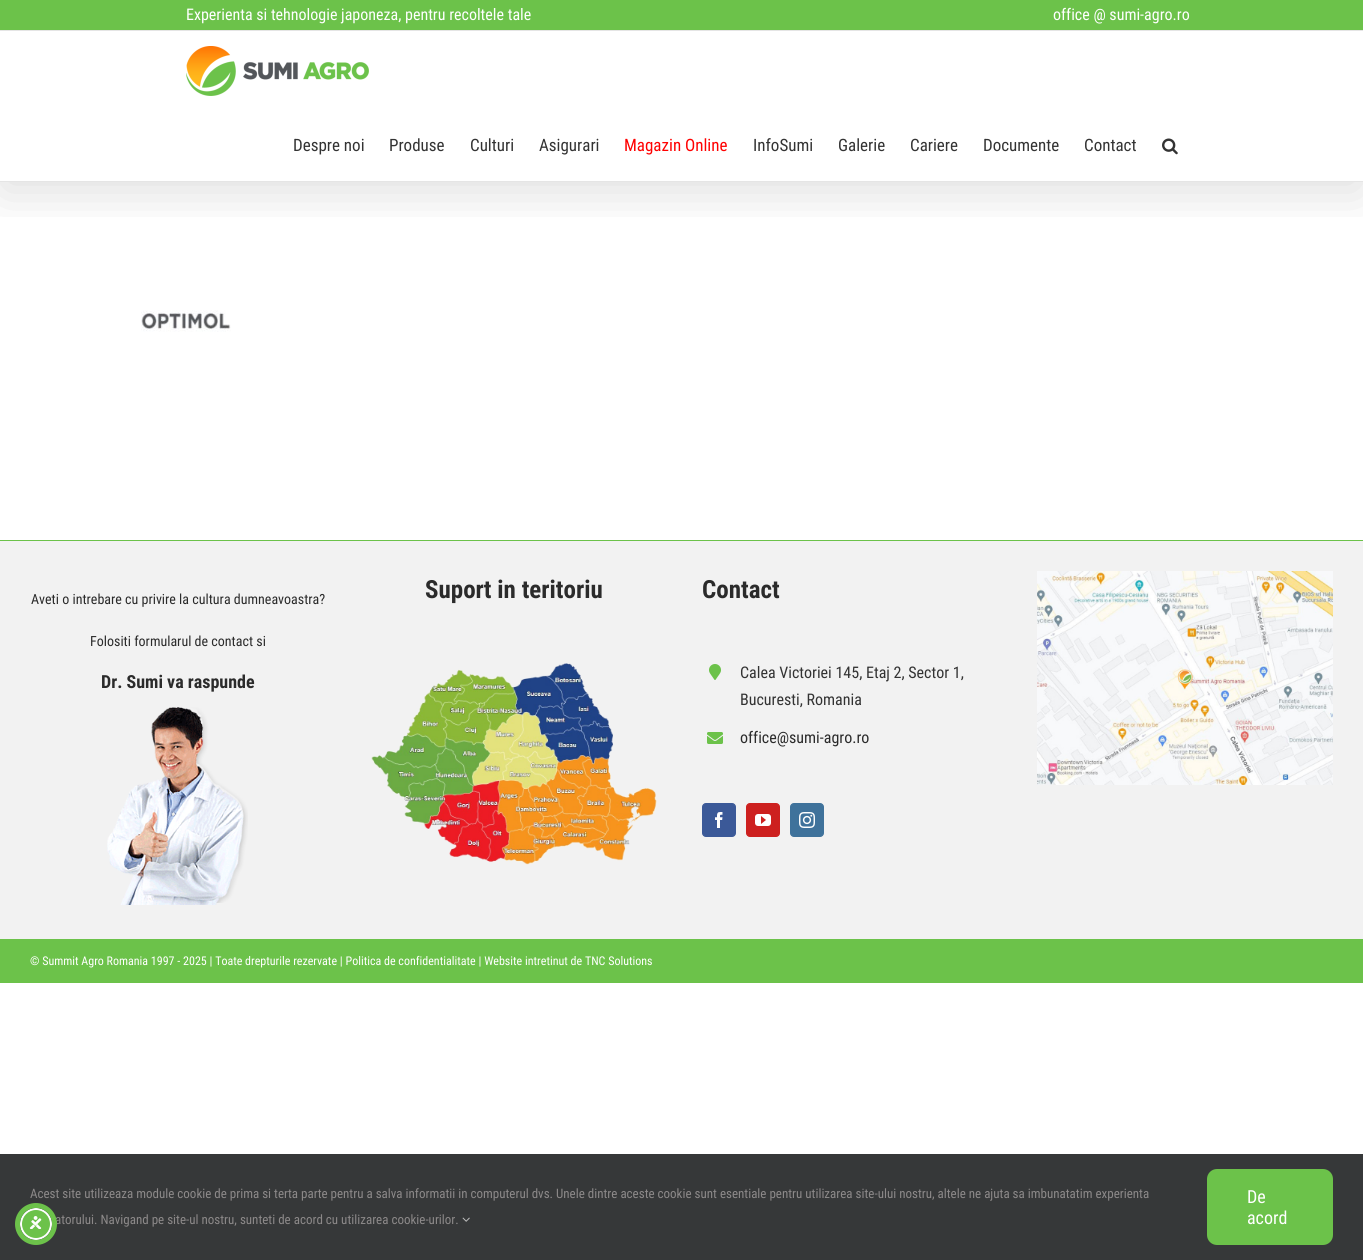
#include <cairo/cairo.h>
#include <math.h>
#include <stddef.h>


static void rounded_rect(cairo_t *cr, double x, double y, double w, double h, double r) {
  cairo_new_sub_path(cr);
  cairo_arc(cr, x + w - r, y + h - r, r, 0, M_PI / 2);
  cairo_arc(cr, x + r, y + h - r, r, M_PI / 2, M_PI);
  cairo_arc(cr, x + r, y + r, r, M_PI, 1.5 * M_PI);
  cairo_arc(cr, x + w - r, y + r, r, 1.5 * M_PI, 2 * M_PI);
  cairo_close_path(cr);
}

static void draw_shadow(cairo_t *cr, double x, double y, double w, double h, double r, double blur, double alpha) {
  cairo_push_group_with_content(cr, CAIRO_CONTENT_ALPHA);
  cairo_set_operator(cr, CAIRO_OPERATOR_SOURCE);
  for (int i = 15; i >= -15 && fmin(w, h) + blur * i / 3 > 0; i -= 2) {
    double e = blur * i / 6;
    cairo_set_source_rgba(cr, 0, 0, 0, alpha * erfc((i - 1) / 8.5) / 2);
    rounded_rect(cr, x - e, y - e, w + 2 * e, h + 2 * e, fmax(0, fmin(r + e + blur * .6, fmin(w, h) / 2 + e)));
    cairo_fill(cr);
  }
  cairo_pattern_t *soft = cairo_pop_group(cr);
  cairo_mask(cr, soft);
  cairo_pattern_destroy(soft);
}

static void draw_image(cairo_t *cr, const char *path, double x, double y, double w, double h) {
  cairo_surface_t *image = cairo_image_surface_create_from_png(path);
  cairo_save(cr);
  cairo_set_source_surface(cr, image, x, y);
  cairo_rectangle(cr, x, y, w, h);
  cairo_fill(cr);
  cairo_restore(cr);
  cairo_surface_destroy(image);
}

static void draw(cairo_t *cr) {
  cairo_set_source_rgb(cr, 1, 1, 1);
  cairo_paint(cr);
  cairo_save(cr);
  cairo_rectangle(cr, 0, 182, 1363, 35);
  cairo_clip(cr);
  cairo_set_source_rgb(cr, 0, 0, 0);
  draw_shadow(cr, 2, 12, 1359, 178, 0, 25, 0.14);
  cairo_restore(cr);
  cairo_set_source_rgb(cr, 108 / 255.0, 194 / 255.0, 74 / 255.0);
  cairo_rectangle(cr, 0, 0, 1363, 30);
  cairo_fill(cr);
  cairo_set_source_rgb(cr, 229 / 255.0, 229 / 255.0, 229 / 255.0);
  cairo_rectangle(cr, 0, 30, 1363, 1);
  cairo_fill(cr);
  cairo_rectangle(cr, 0, 181, 1363, 1);
  cairo_fill(cr);
  draw_image(cr, "images/1.png", 186, 46, 183, 50);
  draw_image(cr, "images/2.png", 1162, 138, 16, 17);
  draw_image(cr, "images/3.png", 141, 310, 90, 22);
  cairo_set_source_rgb(cr, 242 / 255.0, 242 / 255.0, 242 / 255.0);
  cairo_rectangle(cr, 0, 541, 1363, 398);
  cairo_fill(cr);
  cairo_set_source_rgb(cr, 108 / 255.0, 194 / 255.0, 74 / 255.0);
  cairo_rectangle(cr, 0, 540, 1363, 1);
  cairo_fill(cr);
  draw_image(cr, "images/4.png", 107, 707, 141, 198);
  draw_image(cr, "images/5.png", 371, 663, 286, 202);
  draw_image(cr, "images/6.png", 709, 664, 12, 16);
  draw_image(cr, "images/7.png", 707, 732, 16, 12);
  cairo_set_source_rgb(cr, 59 / 255.0, 89 / 255.0, 152 / 255.0);
  rounded_rect(cr, 702.5, 803.5, 33, 33, 3.5);
  cairo_fill_preserve(cr);
  cairo_set_line_width(cr, 1);
  cairo_stroke(cr);
  draw_image(cr, "images/8.png", 715, 812, 8, 16);
  cairo_set_source_rgb(cr, 205 / 255.0, 32 / 255.0, 31 / 255.0);
  rounded_rect(cr, 746.5, 803.5, 33, 33, 3.5);
  cairo_fill_preserve(cr);
  cairo_stroke(cr);
  draw_image(cr, "images/9.png", 755, 814, 16, 12);
  cairo_set_source_rgb(cr, 63 / 255.0, 114 / 255.0, 155 / 255.0);
  rounded_rect(cr, 790.5, 803.5, 33, 33, 3.5);
  cairo_fill_preserve(cr);
  cairo_stroke(cr);
  draw_image(cr, "images/10.png", 799, 812, 16, 16);
  draw_image(cr, "images/11.png", 1037, 571, 296, 214);
  cairo_set_source_rgb(cr, 108 / 255.0, 194 / 255.0, 74 / 255.0);
  cairo_rectangle(cr, 0, 939, 1363, 44);
  cairo_fill(cr);
  cairo_set_source_rgb(cr, 54 / 255.0, 56 / 255.0, 57 / 255.0);
  cairo_rectangle(cr, 0, 1154, 1363, 106);
  cairo_fill(cr);
  draw_image(cr, "images/12.png", 462, 1217, 8, 5);
  cairo_set_source_rgb(cr, 108 / 255.0, 194 / 255.0, 74 / 255.0);
  rounded_rect(cr, 1207, 1169, 126, 76, 10);
  cairo_fill(cr);
  cairo_set_source_rgb(cr, 93 / 255.0, 100 / 255.0, 148 / 255.0);
  draw_shadow(cr, 20, 1210, 32, 32, 16, 2, 0.2);
  cairo_set_source_rgb(cr, 108 / 255.0, 194 / 255.0, 74 / 255.0);
  cairo_arc(cr, 36, 1224, 15, 0, 2 * M_PI);
  cairo_fill_preserve(cr);
  cairo_set_source_rgb(cr, 1, 1, 1);
  cairo_set_line_width(cr, 2);
  cairo_stroke(cr);
  cairo_select_font_face(cr, "Roboto Condensed", CAIRO_FONT_SLANT_NORMAL, CAIRO_FONT_WEIGHT_NORMAL);
  cairo_set_font_size(cr, 16);
  cairo_move_to(cr, 186, 20);
  cairo_show_text(cr, "Experienta si tehnologie japoneza, pentru recoltele tale");
  cairo_move_to(cr, 1053, 20);
  cairo_show_text(cr, "office @ sumi-agro.ro");
  cairo_set_font_size(cr, 17);
  cairo_set_source_rgb(cr, 51 / 255.0, 51 / 255.0, 51 / 255.0);
  cairo_move_to(cr, 293, 151);
  cairo_show_text(cr, "Despre noi");
  cairo_move_to(cr, 389, 151);
  cairo_show_text(cr, "Produse");
  cairo_move_to(cr, 470, 151);
  cairo_show_text(cr, "Culturi");
  cairo_move_to(cr, 539, 151);
  cairo_show_text(cr, "Asigurari");
  cairo_set_source_rgb(cr, 1, 0, 0);
  cairo_move_to(cr, 624, 151);
  cairo_show_text(cr, "Magazin Online");
  cairo_set_source_rgb(cr, 51 / 255.0, 51 / 255.0, 51 / 255.0);
  cairo_move_to(cr, 753, 151);
  cairo_show_text(cr, "InfoSumi");
  cairo_move_to(cr, 838, 151);
  cairo_show_text(cr, "Galerie");
  cairo_move_to(cr, 910, 151);
  cairo_show_text(cr, "Cariere");
  cairo_move_to(cr, 983, 151);
  cairo_show_text(cr, "Documente");
  cairo_move_to(cr, 1084, 151);
  cairo_show_text(cr, "Contact");
  cairo_set_font_size(cr, 14);
  cairo_set_source_rgb(cr, 43 / 255.0, 43 / 255.0, 43 / 255.0);
  cairo_move_to(cr, 31, 604);
  cairo_show_text(cr, "Aveti o intrebare cu privire la cultura dumneavoastra?");
  cairo_move_to(cr, 90, 646);
  cairo_show_text(cr, "Folositi formularul de contact si");
  cairo_select_font_face(cr, "Roboto Condensed", CAIRO_FONT_SLANT_NORMAL, CAIRO_FONT_WEIGHT_BOLD);
  cairo_set_font_size(cr, 18);
  cairo_move_to(cr, 101, 688);
  cairo_show_text(cr, "Dr. Sumi va raspunde");
  cairo_set_font_size(cr, 25);
  cairo_move_to(cr, 425, 598);
  cairo_show_text(cr, "Suport in teritoriu");
  cairo_move_to(cr, 702, 598);
  cairo_show_text(cr, "Contact");
  cairo_select_font_face(cr, "Roboto Condensed", CAIRO_FONT_SLANT_NORMAL, CAIRO_FONT_WEIGHT_NORMAL);
  cairo_set_font_size(cr, 16);
  cairo_set_source_rgb(cr, 51 / 255.0, 51 / 255.0, 51 / 255.0);
  cairo_move_to(cr, 740, 678);
  cairo_show_text(cr, "Calea Victoriei 145, Etaj 2, Sector 1,");
  cairo_move_to(cr, 740, 705);
  cairo_show_text(cr, "Bucuresti, Romania");
  cairo_set_source_rgb(cr, 43 / 255.0, 43 / 255.0, 43 / 255.0);
  cairo_move_to(cr, 740, 743);
  cairo_show_text(cr, "office@sumi-agro.ro");
  cairo_set_font_size(cr, 12);
  cairo_set_source_rgb(cr, 1, 1, 1);
  cairo_move_to(cr, 30, 965);
  cairo_show_text(cr, "© Summit Agro Romania 1997 - 2025 | Toate drepturile rezervate | Politica de confidentialitate | Website intretinut de TNC Solutions");
  cairo_set_font_size(cr, 13);
  cairo_set_source_rgb(cr, 140 / 255.0, 137 / 255.0, 137 / 255.0);
  cairo_move_to(cr, 30, 1198);
  cairo_show_text(cr, "Acest site utilizeaza module cookie de prima si terta parte pentru a salva informatii in computerul dvs. Unele dintre aceste cookie sunt esentiale pentru utilizarea site-ului nostru, altele ne ajuta sa imbunatatim experienta");
  cairo_move_to(cr, 55, 1224);
  cairo_show_text(cr, "atorului. Navigand pe site-ul nostru, sunteti de acord cu utilizarea cookie-urilor.");
  cairo_set_font_size(cr, 18);
  cairo_set_source_rgb(cr, 1, 1, 1);
  cairo_move_to(cr, 1247, 1203);
  cairo_show_text(cr, "De");
  cairo_move_to(cr, 1247, 1224);
  cairo_show_text(cr, "acord");
  cairo_new_path(cr);
  cairo_arc(cr, 36, 1224, 18.5, 0, 2 * M_PI);
  cairo_set_source_rgb(cr, 108 / 255.0, 194 / 255.0, 74 / 255.0);
  cairo_set_line_width(cr, 5);
  cairo_stroke(cr);
  draw_image(cr, "images/13.png", 29, 1216, 13, 13);
}

int main(void) {
  cairo_surface_t *surface = cairo_image_surface_create(CAIRO_FORMAT_RGB24, 1363, 1260);
  cairo_t *cr = cairo_create(surface);
  cairo_font_options_t *options = cairo_font_options_create();
  cairo_font_options_set_hint_metrics(options, CAIRO_HINT_METRICS_OFF);
  cairo_font_options_set_hint_style(options, CAIRO_HINT_STYLE_NONE);
  cairo_set_font_options(cr, options);
  cairo_set_miter_limit(cr, 4);
  draw(cr);
  cairo_surface_write_to_png(surface, "out.png");
  cairo_font_options_destroy(options);
  cairo_destroy(cr);
  cairo_surface_destroy(surface);
  return 0;
}
